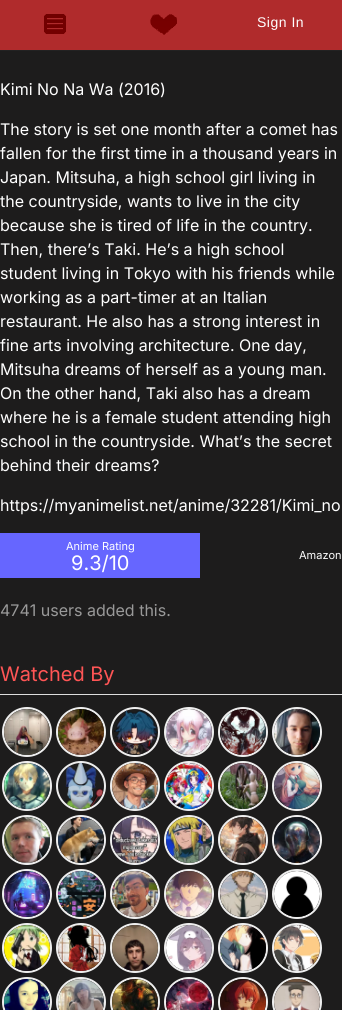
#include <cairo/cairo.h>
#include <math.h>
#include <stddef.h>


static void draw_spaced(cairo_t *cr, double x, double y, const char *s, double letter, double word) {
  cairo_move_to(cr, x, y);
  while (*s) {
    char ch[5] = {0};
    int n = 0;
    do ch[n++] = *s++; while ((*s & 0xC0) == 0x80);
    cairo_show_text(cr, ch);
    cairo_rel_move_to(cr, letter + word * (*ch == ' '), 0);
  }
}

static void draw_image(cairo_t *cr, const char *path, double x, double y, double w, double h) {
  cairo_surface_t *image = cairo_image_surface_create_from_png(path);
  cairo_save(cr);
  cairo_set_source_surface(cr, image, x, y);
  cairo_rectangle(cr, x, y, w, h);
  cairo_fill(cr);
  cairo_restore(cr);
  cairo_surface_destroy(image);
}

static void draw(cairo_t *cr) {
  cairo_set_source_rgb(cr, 29 / 255.0, 28 / 255.0, 28 / 255.0);
  cairo_paint(cr);
  cairo_set_source_rgb(cr, 176 / 255.0, 43 / 255.0, 44 / 255.0);
  cairo_rectangle(cr, 0, 0, 342, 50);
  cairo_fill(cr);
  cairo_set_source_rgb(cr, 34 / 255.0, 34 / 255.0, 34 / 255.0);
  cairo_rectangle(cr, 0, 50, 342, 1);
  cairo_fill(cr);
  draw_image(cr, "images/1.png", 44, 14, 22, 20);
  draw_image(cr, "images/2.png", 150, 14, 27, 21);
  cairo_set_source_rgb(cr, 102 / 255.0, 102 / 255.0, 1);
  cairo_rectangle(cr, 0, 533, 200, 45);
  cairo_fill(cr);
  cairo_set_source_rgb(cr, 221 / 255.0, 221 / 255.0, 221 / 255.0);
  cairo_rectangle(cr, 0, 694, 342, 1);
  cairo_fill(cr);
  cairo_arc(cr, 27, 732, 24, 0, 2 * M_PI);
  cairo_set_source_rgb(cr, 238 / 255.0, 238 / 255.0, 238 / 255.0);
  cairo_stroke(cr);
  draw_image(cr, "images/3.png", 4, 709, 46, 46);
  cairo_arc(cr, 81, 732, 24, 0, 2 * M_PI);
  cairo_stroke(cr);
  draw_image(cr, "images/4.png", 58, 709, 46, 46);
  cairo_arc(cr, 135, 732, 24, 0, 2 * M_PI);
  cairo_stroke(cr);
  draw_image(cr, "images/5.png", 114, 710, 44, 45);
  cairo_arc(cr, 189, 732, 24, 0, 2 * M_PI);
  cairo_stroke(cr);
  draw_image(cr, "images/6.png", 166, 709, 46, 46);
  cairo_arc(cr, 243, 732, 24, 0, 2 * M_PI);
  cairo_stroke(cr);
  draw_image(cr, "images/7.png", 220, 709, 46, 46);
  cairo_arc(cr, 297, 732, 24, 0, 2 * M_PI);
  cairo_stroke(cr);
  draw_image(cr, "images/8.png", 274, 709, 46, 46);
  cairo_arc(cr, 27, 786, 24, 0, 2 * M_PI);
  cairo_stroke(cr);
  draw_image(cr, "images/9.png", 4, 763, 46, 46);
  cairo_arc(cr, 81, 786, 24, 0, 2 * M_PI);
  cairo_stroke(cr);
  draw_image(cr, "images/10.png", 65, 763, 38, 46);
  cairo_arc(cr, 135, 786, 24, 0, 2 * M_PI);
  cairo_stroke(cr);
  draw_image(cr, "images/11.png", 112, 763, 46, 46);
  cairo_arc(cr, 189, 786, 24, 0, 2 * M_PI);
  cairo_stroke(cr);
  draw_image(cr, "images/12.png", 166, 763, 46, 46);
  cairo_arc(cr, 243, 786, 24, 0, 2 * M_PI);
  cairo_stroke(cr);
  draw_image(cr, "images/13.png", 220, 763, 46, 46);
  cairo_arc(cr, 297, 786, 24, 0, 2 * M_PI);
  cairo_stroke(cr);
  draw_image(cr, "images/14.png", 274, 763, 46, 46);
  cairo_arc(cr, 27, 840, 24, 0, 2 * M_PI);
  cairo_stroke(cr);
  draw_image(cr, "images/15.png", 4, 817, 46, 46);
  cairo_arc(cr, 81, 840, 24, 0, 2 * M_PI);
  cairo_stroke(cr);
  draw_image(cr, "images/16.png", 58, 817, 46, 46);
  cairo_arc(cr, 135, 840, 24, 0, 2 * M_PI);
  cairo_stroke(cr);
  draw_image(cr, "images/17.png", 112, 817, 46, 46);
  cairo_arc(cr, 189, 840, 24, 0, 2 * M_PI);
  cairo_stroke(cr);
  draw_image(cr, "images/18.png", 166, 817, 46, 46);
  cairo_arc(cr, 243, 840, 24, 0, 2 * M_PI);
  cairo_stroke(cr);
  draw_image(cr, "images/19.png", 220, 817, 46, 46);
  cairo_arc(cr, 297, 840, 24, 0, 2 * M_PI);
  cairo_stroke(cr);
  draw_image(cr, "images/20.png", 274, 817, 46, 46);
  cairo_arc(cr, 27, 894, 24, 0, 2 * M_PI);
  cairo_stroke(cr);
  draw_image(cr, "images/21.png", 4, 871, 46, 46);
  cairo_arc(cr, 81, 894, 24, 0, 2 * M_PI);
  cairo_stroke(cr);
  draw_image(cr, "images/22.png", 58, 871, 46, 46);
  cairo_arc(cr, 135, 894, 24, 0, 2 * M_PI);
  cairo_stroke(cr);
  draw_image(cr, "images/23.png", 112, 871, 46, 46);
  cairo_arc(cr, 189, 894, 24, 0, 2 * M_PI);
  cairo_stroke(cr);
  draw_image(cr, "images/24.png", 166, 871, 46, 46);
  cairo_arc(cr, 243, 894, 24, 0, 2 * M_PI);
  cairo_stroke(cr);
  draw_image(cr, "images/25.png", 220, 871, 46, 46);
  cairo_arc(cr, 297, 894, 24, 0, 2 * M_PI);
  cairo_stroke(cr);
  draw_image(cr, "images/26.png", 274, 871, 46, 46);
  cairo_arc(cr, 27, 948, 24, 0, 2 * M_PI);
  cairo_stroke(cr);
  draw_image(cr, "images/27.png", 4, 925, 46, 46);
  cairo_arc(cr, 81, 948, 24, 0, 2 * M_PI);
  cairo_stroke(cr);
  draw_image(cr, "images/28.png", 58, 925, 46, 46);
  cairo_arc(cr, 135, 948, 24, 0, 2 * M_PI);
  cairo_stroke(cr);
  draw_image(cr, "images/29.png", 112, 925, 46, 46);
  cairo_arc(cr, 189, 948, 24, 0, 2 * M_PI);
  cairo_stroke(cr);
  draw_image(cr, "images/30.png", 166, 925, 46, 46);
  cairo_arc(cr, 243, 948, 24, 0, 2 * M_PI);
  cairo_stroke(cr);
  draw_image(cr, "images/31.png", 220, 925, 46, 46);
  cairo_arc(cr, 297, 948, 24, 0, 2 * M_PI);
  cairo_stroke(cr);
  draw_image(cr, "images/32.png", 274, 925, 46, 46);
  cairo_arc(cr, 27, 1002, 24, 0, 2 * M_PI);
  cairo_stroke(cr);
  draw_image(cr, "images/33.png", 4, 979, 46, 31);
  cairo_arc(cr, 81, 1002, 24, 0, 2 * M_PI);
  cairo_stroke(cr);
  draw_image(cr, "images/34.png", 58, 979, 46, 31);
  cairo_arc(cr, 135, 1002, 24, 0, 2 * M_PI);
  cairo_stroke(cr);
  draw_image(cr, "images/35.png", 112, 979, 46, 31);
  cairo_arc(cr, 189, 1002, 24, 0, 2 * M_PI);
  cairo_stroke(cr);
  draw_image(cr, "images/36.png", 166, 979, 46, 31);
  cairo_arc(cr, 243, 1002, 24, 0, 2 * M_PI);
  cairo_stroke(cr);
  draw_image(cr, "images/37.png", 220, 979, 46, 31);
  cairo_arc(cr, 297, 1002, 24, 0, 2 * M_PI);
  cairo_stroke(cr);
  draw_image(cr, "images/38.png", 274, 979, 46, 31);
  cairo_select_font_face(cr, "Liberation Sans", CAIRO_FONT_SLANT_NORMAL, CAIRO_FONT_WEIGHT_NORMAL);
  cairo_set_font_size(cr, 14);
  cairo_set_source_rgb(cr, 1, 1, 1);
  draw_spaced(cr, 257, 27, "Sign In", 0.5, 0);
  cairo_select_font_face(cr, "Inter", CAIRO_FONT_SLANT_NORMAL, CAIRO_FONT_WEIGHT_NORMAL);
  cairo_set_font_size(cr, 16);
  cairo_move_to(cr, 0, 95);
  cairo_show_text(cr, "Kimi No Na Wa (2016)");
  cairo_move_to(cr, 0, 135);
  cairo_show_text(cr, "The story is set one month after a comet has");
  cairo_move_to(cr, 0, 159);
  cairo_show_text(cr, "fallen for the first time in a thousand years in");
  cairo_move_to(cr, 0, 183);
  cairo_show_text(cr, "Japan. Mitsuha, a high school girl living in");
  cairo_move_to(cr, 0, 207);
  cairo_show_text(cr, "the countryside, wants to live in the city");
  cairo_move_to(cr, 0, 231);
  cairo_show_text(cr, "because she is tired of life in the country.");
  cairo_move_to(cr, 0, 255);
  cairo_show_text(cr, "Then, there’s Taki. He’s a high school");
  cairo_move_to(cr, 0, 279);
  cairo_show_text(cr, "student living in Tokyo with his friends while");
  cairo_move_to(cr, 0, 303);
  cairo_show_text(cr, "working as a part-timer at an Italian");
  cairo_move_to(cr, 0, 327);
  cairo_show_text(cr, "restaurant. He also has a strong interest in");
  cairo_move_to(cr, 0, 351);
  cairo_show_text(cr, "fine arts involving architecture. One day,");
  cairo_move_to(cr, 0, 375);
  cairo_show_text(cr, "Mitsuha dreams of herself as a young man.");
  cairo_move_to(cr, 0, 399);
  cairo_show_text(cr, "On the other hand, Taki also has a dream");
  cairo_move_to(cr, 0, 423);
  cairo_show_text(cr, "where he is a female student attending high");
  cairo_move_to(cr, 0, 447);
  cairo_show_text(cr, "school in the countryside. What’s the secret");
  cairo_move_to(cr, 0, 471);
  cairo_show_text(cr, "behind their dreams?");
  cairo_move_to(cr, 0, 511);
  cairo_show_text(cr, "https://myanimelist.net/anime/32281/Kimi_no");
  cairo_set_font_size(cr, 11);
  cairo_move_to(cr, 66, 550);
  cairo_show_text(cr, "Anime Rating");
  cairo_set_font_size(cr, 20);
  cairo_move_to(cr, 71, 570);
  cairo_show_text(cr, "9.3/10");
  cairo_set_font_size(cr, 11);
  cairo_move_to(cr, 299, 559);
  cairo_show_text(cr, "Amazon");
  cairo_set_font_size(cr, 16);
  cairo_set_source_rgb(cr, 153 / 255.0, 153 / 255.0, 153 / 255.0);
  cairo_move_to(cr, 0, 616);
  cairo_show_text(cr, "4741 users added this.");
  cairo_set_font_size(cr, 20);
  cairo_set_source_rgb(cr, 1, 85 / 255.0, 85 / 255.0);
  cairo_move_to(cr, 0, 681);
  cairo_show_text(cr, "Watched By");
}

int main(void) {
  cairo_surface_t *surface = cairo_image_surface_create(CAIRO_FORMAT_RGB24, 342, 1010);
  cairo_t *cr = cairo_create(surface);
  cairo_font_options_t *options = cairo_font_options_create();
  cairo_font_options_set_hint_metrics(options, CAIRO_HINT_METRICS_OFF);
  cairo_font_options_set_hint_style(options, CAIRO_HINT_STYLE_NONE);
  cairo_set_font_options(cr, options);
  cairo_set_miter_limit(cr, 4);
  draw(cr);
  cairo_surface_write_to_png(surface, "out.png");
  cairo_font_options_destroy(options);
  cairo_destroy(cr);
  cairo_surface_destroy(surface);
  return 0;
}
